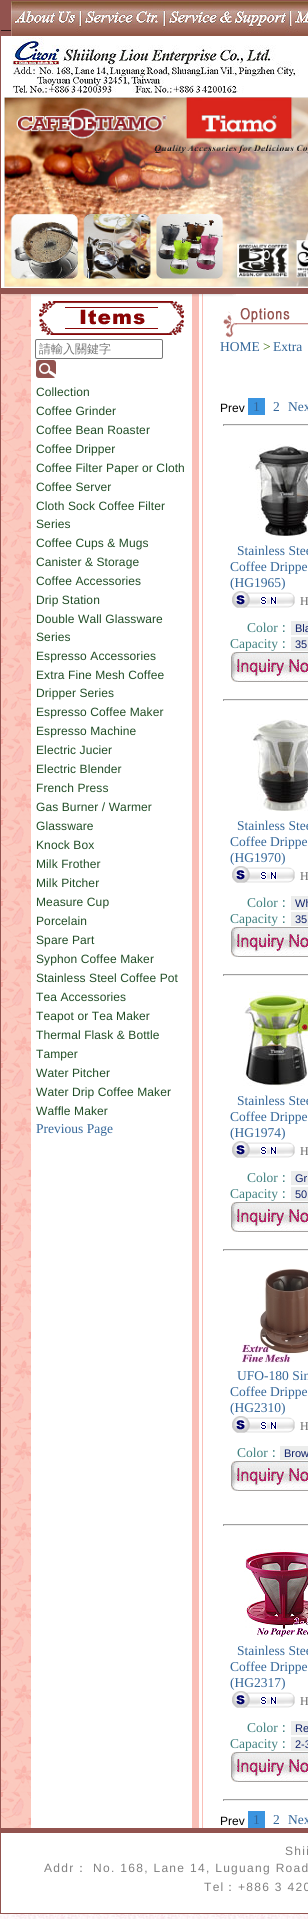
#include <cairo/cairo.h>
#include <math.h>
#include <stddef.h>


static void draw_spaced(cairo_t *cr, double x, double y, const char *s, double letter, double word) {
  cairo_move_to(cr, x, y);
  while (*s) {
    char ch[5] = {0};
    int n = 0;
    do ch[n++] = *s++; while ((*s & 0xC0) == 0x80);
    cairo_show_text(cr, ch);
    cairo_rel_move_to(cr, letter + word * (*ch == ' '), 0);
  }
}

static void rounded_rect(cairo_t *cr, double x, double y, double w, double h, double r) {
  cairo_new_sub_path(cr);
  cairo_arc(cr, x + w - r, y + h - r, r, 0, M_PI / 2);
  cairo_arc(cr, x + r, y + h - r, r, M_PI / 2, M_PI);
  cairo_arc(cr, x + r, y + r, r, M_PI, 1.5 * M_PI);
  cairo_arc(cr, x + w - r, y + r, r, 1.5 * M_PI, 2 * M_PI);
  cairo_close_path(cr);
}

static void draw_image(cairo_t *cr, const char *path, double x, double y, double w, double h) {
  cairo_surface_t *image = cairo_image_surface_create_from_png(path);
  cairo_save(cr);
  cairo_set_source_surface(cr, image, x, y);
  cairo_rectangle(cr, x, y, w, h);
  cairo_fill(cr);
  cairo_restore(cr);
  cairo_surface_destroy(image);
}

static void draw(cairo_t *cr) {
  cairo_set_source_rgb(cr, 1, 1, 1);
  cairo_paint(cr);
  draw_image(cr, "images/1.png", 0, 1914, 308, 5);
  cairo_set_source_rgb(cr, 146 / 255.0, 83 / 255.0, 79 / 255.0);
  cairo_rectangle(cr, 0, 0, 308, 1914);
  cairo_fill(cr);
  cairo_set_source_rgb(cr, 1, 1, 1);
  cairo_rectangle(cr, 1, 36, 307, 1877);
  cairo_fill(cr);
  draw_image(cr, "images/2.png", 1, 1, 10, 35);
  draw_image(cr, "images/3.png", 11, 1, 70, 35);
  draw_image(cr, "images/4.png", 81, 1, 84, 35);
  draw_image(cr, "images/5.png", 165, 1, 126, 35);
  draw_image(cr, "images/6.png", 291, 1, 17, 35);
  draw_image(cr, "images/7.png", 12, 37, 287, 56);
  draw_image(cr, "images/8.png", 4, 97, 304, 190);
  cairo_set_source_rgb(cr, 146 / 255.0, 83 / 255.0, 79 / 255.0);
  cairo_rectangle(cr, 1, 288, 307, 6);
  cairo_fill(cr);
  draw_image(cr, "images/9.png", 1, 294, 235, 5);
  draw_image(cr, "images/10.png", 1, 299, 202, 40);
  draw_image(cr, "images/11.png", 39, 301, 145, 34);
  draw_image(cr, "images/12.png", 223, 308, 85, 30);
  draw_image(cr, "images/13.png", 1, 339, 202, 1489);
  rounded_rect(cr, 35.5, 339.5, 127, 19, 1.5);
  cairo_set_source_rgb(cr, 118 / 255.0, 118 / 255.0, 118 / 255.0);
  cairo_set_line_width(cr, 1);
  cairo_stroke(cr);
  draw_image(cr, "images/14.png", 36, 360, 20, 18);
  cairo_set_source_rgb(cr, 58 / 255.0, 148 / 255.0, 224 / 255.0);
  cairo_rectangle(cr, 248, 398, 17, 17);
  cairo_fill(cr);
  cairo_set_source_rgb(cr, 159 / 255.0, 159 / 255.0, 159 / 255.0);
  cairo_rectangle(cr, 223, 424, 85, 1);
  cairo_fill(cr);
  cairo_set_source_rgb(cr, 238 / 255.0, 238 / 255.0, 238 / 255.0);
  cairo_rectangle(cr, 223, 425, 85, 1);
  cairo_fill(cr);
  cairo_set_source_rgb(cr, 159 / 255.0, 159 / 255.0, 159 / 255.0);
  cairo_rectangle(cr, 223, 424, 1, 2);
  cairo_fill(cr);
  draw_image(cr, "images/15.png", 249, 444, 59, 92);
  draw_image(cr, "images/16.png", 232, 591, 63, 17);
  cairo_set_source_rgb(cr, 236 / 255.0, 237 / 255.0, 236 / 255.0);
  cairo_rectangle(cr, 291, 621, 17, 14);
  cairo_fill(cr);
  cairo_rectangle(cr, 291, 637, 17, 14);
  cairo_fill(cr);
  draw_image(cr, "images/17.png", 231, 652, 77, 30);
  cairo_set_source_rgb(cr, 159 / 255.0, 159 / 255.0, 159 / 255.0);
  cairo_rectangle(cr, 223, 699, 85, 1);
  cairo_fill(cr);
  cairo_set_source_rgb(cr, 238 / 255.0, 238 / 255.0, 238 / 255.0);
  cairo_rectangle(cr, 223, 700, 85, 1);
  cairo_fill(cr);
  cairo_set_source_rgb(cr, 159 / 255.0, 159 / 255.0, 159 / 255.0);
  cairo_rectangle(cr, 223, 699, 1, 2);
  cairo_fill(cr);
  draw_image(cr, "images/18.png", 251, 719, 57, 92);
  draw_image(cr, "images/16.png", 232, 866, 63, 17);
  cairo_set_source_rgb(cr, 236 / 255.0, 237 / 255.0, 236 / 255.0);
  cairo_rectangle(cr, 291, 896, 17, 14);
  cairo_fill(cr);
  cairo_rectangle(cr, 291, 912, 17, 14);
  cairo_fill(cr);
  draw_image(cr, "images/17.png", 231, 927, 77, 30);
  cairo_set_source_rgb(cr, 159 / 255.0, 159 / 255.0, 159 / 255.0);
  cairo_rectangle(cr, 223, 974, 85, 1);
  cairo_fill(cr);
  cairo_set_source_rgb(cr, 238 / 255.0, 238 / 255.0, 238 / 255.0);
  cairo_rectangle(cr, 223, 975, 85, 1);
  cairo_fill(cr);
  cairo_set_source_rgb(cr, 159 / 255.0, 159 / 255.0, 159 / 255.0);
  cairo_rectangle(cr, 223, 974, 1, 2);
  cairo_fill(cr);
  draw_image(cr, "images/19.png", 243, 990, 65, 96);
  draw_image(cr, "images/16.png", 232, 1141, 63, 17);
  cairo_set_source_rgb(cr, 236 / 255.0, 237 / 255.0, 236 / 255.0);
  cairo_rectangle(cr, 291, 1171, 17, 14);
  cairo_fill(cr);
  cairo_rectangle(cr, 291, 1187, 17, 14);
  cairo_fill(cr);
  draw_image(cr, "images/17.png", 231, 1202, 77, 30);
  cairo_set_source_rgb(cr, 159 / 255.0, 159 / 255.0, 159 / 255.0);
  cairo_rectangle(cr, 223, 1249, 85, 1);
  cairo_fill(cr);
  cairo_set_source_rgb(cr, 238 / 255.0, 238 / 255.0, 238 / 255.0);
  cairo_rectangle(cr, 223, 1250, 85, 1);
  cairo_fill(cr);
  cairo_set_source_rgb(cr, 159 / 255.0, 159 / 255.0, 159 / 255.0);
  cairo_rectangle(cr, 223, 1249, 1, 2);
  cairo_fill(cr);
  draw_image(cr, "images/20.png", 242, 1268, 66, 95);
  draw_image(cr, "images/16.png", 232, 1416, 63, 17);
  cairo_set_source_rgb(cr, 236 / 255.0, 237 / 255.0, 236 / 255.0);
  cairo_rectangle(cr, 280, 1446, 28, 14);
  cairo_fill(cr);
  draw_image(cr, "images/17.png", 231, 1461, 77, 30);
  cairo_set_source_rgb(cr, 159 / 255.0, 159 / 255.0, 159 / 255.0);
  cairo_rectangle(cr, 223, 1524, 85, 1);
  cairo_fill(cr);
  cairo_set_source_rgb(cr, 238 / 255.0, 238 / 255.0, 238 / 255.0);
  cairo_rectangle(cr, 223, 1525, 85, 1);
  cairo_fill(cr);
  cairo_set_source_rgb(cr, 159 / 255.0, 159 / 255.0, 159 / 255.0);
  cairo_rectangle(cr, 223, 1524, 1, 2);
  cairo_fill(cr);
  draw_image(cr, "images/21.png", 244, 1549, 64, 88);
  draw_image(cr, "images/16.png", 232, 1691, 63, 17);
  cairo_set_source_rgb(cr, 236 / 255.0, 237 / 255.0, 236 / 255.0);
  cairo_rectangle(cr, 291, 1721, 17, 14);
  cairo_fill(cr);
  cairo_rectangle(cr, 291, 1737, 17, 14);
  cairo_fill(cr);
  draw_image(cr, "images/17.png", 231, 1752, 77, 30);
  cairo_set_source_rgb(cr, 159 / 255.0, 159 / 255.0, 159 / 255.0);
  cairo_rectangle(cr, 223, 1799, 85, 1);
  cairo_fill(cr);
  cairo_set_source_rgb(cr, 238 / 255.0, 238 / 255.0, 238 / 255.0);
  cairo_rectangle(cr, 223, 1800, 85, 1);
  cairo_fill(cr);
  cairo_set_source_rgb(cr, 159 / 255.0, 159 / 255.0, 159 / 255.0);
  cairo_rectangle(cr, 223, 1799, 1, 2);
  cairo_fill(cr);
  cairo_set_source_rgb(cr, 58 / 255.0, 148 / 255.0, 224 / 255.0);
  cairo_rectangle(cr, 248, 1811, 17, 17);
  cairo_fill(cr);
  cairo_set_source_rgb(cr, 146 / 255.0, 83 / 255.0, 79 / 255.0);
  cairo_rectangle(cr, 1, 1828, 307, 5);
  cairo_fill(cr);
  cairo_select_font_face(cr, "WenQuanYi Zen Hei Medium", CAIRO_FONT_SLANT_NORMAL, CAIRO_FONT_WEIGHT_NORMAL);
  cairo_set_font_size(cr, 12);
  cairo_set_source_rgb(cr, 117 / 255.0, 117 / 255.0, 117 / 255.0);
  cairo_move_to(cr, 39, 353);
  cairo_show_text(cr, "請輸入關鍵字");
  cairo_select_font_face(cr, "Liberation Sans", CAIRO_FONT_SLANT_NORMAL, CAIRO_FONT_WEIGHT_NORMAL);
  cairo_set_source_rgb(cr, 33 / 255.0, 77 / 255.0, 38 / 255.0);
  draw_spaced(cr, 36, 396, "Collection", 0.1, 0);
  draw_spaced(cr, 36, 415, "Coffee Grinder", 0.1, 0);
  draw_spaced(cr, 36, 434, "Coffee Bean Roaster", 0.1, 0);
  draw_spaced(cr, 36, 453, "Coffee Dripper", 0.1, 0);
  draw_spaced(cr, 36, 472, "Coffee Filter Paper or Cloth", 0.1, 0);
  draw_spaced(cr, 36, 491, "Coffee Server", 0.1, 0);
  draw_spaced(cr, 36, 510, "Cloth Sock Coffee Filter", 0.1, 0);
  draw_spaced(cr, 36, 528, "Series", 0.1, 0);
  draw_spaced(cr, 36, 547, "Coffee Cups & Mugs", 0.1, 0);
  draw_spaced(cr, 36, 566, "Canister & Storage", 0.1, 0);
  draw_spaced(cr, 36, 585, "Coffee Accessories", 0.1, 0);
  draw_spaced(cr, 36, 604, "Drip Station", 0.1, 0);
  draw_spaced(cr, 36, 623, "Double Wall Glassware", 0.1, 0);
  draw_spaced(cr, 36, 641, "Series", 0.1, 0);
  draw_spaced(cr, 36, 660, "Espresso Accessories", 0.1, 0);
  draw_spaced(cr, 36, 679, "Extra Fine Mesh Coffee", 0.1, 0);
  draw_spaced(cr, 36, 697, "Dripper Series", 0.1, 0);
  draw_spaced(cr, 36, 716, "Espresso Coffee Maker", 0.1, 0);
  draw_spaced(cr, 36, 735, "Espresso Machine", 0.1, 0);
  draw_spaced(cr, 36, 754, "Electric Jucier", 0.1, 0);
  draw_spaced(cr, 36, 773, "Electric Blender", 0.1, 0);
  draw_spaced(cr, 36, 792, "French Press", 0.1, 0);
  draw_spaced(cr, 36, 811, "Gas Burner / Warmer", 0.1, 0);
  draw_spaced(cr, 36, 830, "Glassware", 0.1, 0);
  draw_spaced(cr, 36, 849, "Knock Box", 0.1, 0);
  draw_spaced(cr, 36, 868, "Milk Frother", 0.1, 0);
  draw_spaced(cr, 36, 887, "Milk Pitcher", 0.1, 0);
  draw_spaced(cr, 36, 906, "Measure Cup", 0.1, 0);
  draw_spaced(cr, 36, 925, "Porcelain", 0.1, 0);
  draw_spaced(cr, 36, 944, "Spare Part", 0.1, 0);
  draw_spaced(cr, 36, 963, "Syphon Coffee Maker", 0.1, 0);
  draw_spaced(cr, 36, 982, "Stainless Steel Coffee Pot", 0.1, 0);
  draw_spaced(cr, 36, 1001, "Tea Accessories", 0.1, 0);
  draw_spaced(cr, 36, 1020, "Teapot or Tea Maker", 0.1, 0);
  draw_spaced(cr, 36, 1039, "Thermal Flask & Bottle", 0.1, 0);
  draw_spaced(cr, 36, 1058, "Tamper", 0.1, 0);
  draw_spaced(cr, 36, 1077, "Water Pitcher", 0.1, 0);
  draw_spaced(cr, 36, 1096, "Water Drip Coffee Maker", 0.1, 0);
  draw_spaced(cr, 36, 1115, "Waffle Maker", 0.1, 0);
  cairo_select_font_face(cr, "Liberation Serif", CAIRO_FONT_SLANT_NORMAL, CAIRO_FONT_WEIGHT_NORMAL);
  cairo_set_font_size(cr, 13.5);
  cairo_set_source_rgb(cr, 51 / 255.0, 102 / 255.0, 153 / 255.0);
  cairo_move_to(cr, 36, 1133);
  cairo_show_text(cr, "Previous Page");
  cairo_move_to(cr, 220, 351);
  cairo_show_text(cr, "HOME");
  cairo_set_source_rgb(cr, 51 / 255.0, 102 / 255.0, 0);
  cairo_move_to(cr, 263, 351);
  cairo_show_text(cr, ">");
  cairo_set_source_rgb(cr, 51 / 255.0, 102 / 255.0, 153 / 255.0);
  cairo_move_to(cr, 273, 351);
  cairo_show_text(cr, "Extra");
  cairo_select_font_face(cr, "Liberation Sans", CAIRO_FONT_SLANT_NORMAL, CAIRO_FONT_WEIGHT_NORMAL);
  cairo_set_font_size(cr, 12);
  cairo_set_source_rgb(cr, 0, 0, 0);
  cairo_move_to(cr, 220, 412);
  cairo_show_text(cr, "Prev");
  cairo_select_font_face(cr, "Liberation Serif", CAIRO_FONT_SLANT_NORMAL, CAIRO_FONT_WEIGHT_NORMAL);
  cairo_set_font_size(cr, 13.5);
  cairo_set_source_rgb(cr, 51 / 255.0, 102 / 255.0, 153 / 255.0);
  cairo_move_to(cr, 253, 411);
  cairo_show_text(cr, "1");
  cairo_move_to(cr, 273, 411);
  cairo_show_text(cr, "2");
  cairo_move_to(cr, 288, 411);
  cairo_show_text(cr, "Nex");
  cairo_move_to(cr, 237, 555);
  cairo_show_text(cr, "Stainless Stee");
  cairo_move_to(cr, 230, 571);
  cairo_show_text(cr, "Coffee Drippe");
  cairo_move_to(cr, 230, 587);
  cairo_show_text(cr, "(HG1965)");
  cairo_set_font_size(cr, 12);
  cairo_set_source_rgb(cr, 102 / 255.0, 102 / 255.0, 102 / 255.0);
  cairo_move_to(cr, 300, 605);
  cairo_show_text(cr, "H");
  cairo_set_font_size(cr, 13.5);
  cairo_set_source_rgb(cr, 64 / 255.0, 128 / 255.0, 128 / 255.0);
  cairo_move_to(cr, 247, 632);
  cairo_show_text(cr, "Color");
  cairo_select_font_face(cr, "WenQuanYi Zen Hei Medium", CAIRO_FONT_SLANT_NORMAL, CAIRO_FONT_WEIGHT_NORMAL);
  cairo_move_to(cr, 277, 632);
  cairo_show_text(cr, "：");
  cairo_select_font_face(cr, "Liberation Sans", CAIRO_FONT_SLANT_NORMAL, CAIRO_FONT_WEIGHT_NORMAL);
  cairo_set_font_size(cr, 11);
  cairo_set_source_rgb(cr, 14 / 255.0, 31 / 255.0, 105 / 255.0);
  cairo_move_to(cr, 295, 632);
  cairo_show_text(cr, "Bla");
  cairo_select_font_face(cr, "Liberation Serif", CAIRO_FONT_SLANT_NORMAL, CAIRO_FONT_WEIGHT_NORMAL);
  cairo_set_font_size(cr, 13.5);
  cairo_set_source_rgb(cr, 64 / 255.0, 128 / 255.0, 128 / 255.0);
  cairo_move_to(cr, 230, 648);
  cairo_show_text(cr, "Capacity");
  cairo_select_font_face(cr, "WenQuanYi Zen Hei Medium", CAIRO_FONT_SLANT_NORMAL, CAIRO_FONT_WEIGHT_NORMAL);
  cairo_move_to(cr, 277, 648);
  cairo_show_text(cr, "：");
  cairo_select_font_face(cr, "Liberation Sans", CAIRO_FONT_SLANT_NORMAL, CAIRO_FONT_WEIGHT_NORMAL);
  cairo_set_font_size(cr, 11);
  cairo_set_source_rgb(cr, 14 / 255.0, 31 / 255.0, 105 / 255.0);
  cairo_move_to(cr, 295, 648);
  cairo_show_text(cr, "35");
  cairo_select_font_face(cr, "Liberation Serif", CAIRO_FONT_SLANT_NORMAL, CAIRO_FONT_WEIGHT_NORMAL);
  cairo_set_font_size(cr, 13.5);
  cairo_set_source_rgb(cr, 51 / 255.0, 102 / 255.0, 153 / 255.0);
  cairo_move_to(cr, 237, 830);
  cairo_show_text(cr, "Stainless Stee");
  cairo_move_to(cr, 230, 846);
  cairo_show_text(cr, "Coffee Drippe");
  cairo_move_to(cr, 230, 862);
  cairo_show_text(cr, "(HG1970)");
  cairo_set_font_size(cr, 12);
  cairo_set_source_rgb(cr, 102 / 255.0, 102 / 255.0, 102 / 255.0);
  cairo_move_to(cr, 300, 880);
  cairo_show_text(cr, "H");
  cairo_set_font_size(cr, 13.5);
  cairo_set_source_rgb(cr, 64 / 255.0, 128 / 255.0, 128 / 255.0);
  cairo_move_to(cr, 247, 907);
  cairo_show_text(cr, "Color");
  cairo_select_font_face(cr, "WenQuanYi Zen Hei Medium", CAIRO_FONT_SLANT_NORMAL, CAIRO_FONT_WEIGHT_NORMAL);
  cairo_move_to(cr, 277, 907);
  cairo_show_text(cr, "：");
  cairo_select_font_face(cr, "Liberation Sans", CAIRO_FONT_SLANT_NORMAL, CAIRO_FONT_WEIGHT_NORMAL);
  cairo_set_font_size(cr, 11);
  cairo_set_source_rgb(cr, 14 / 255.0, 31 / 255.0, 105 / 255.0);
  cairo_move_to(cr, 295, 907);
  cairo_show_text(cr, "Wh");
  cairo_select_font_face(cr, "Liberation Serif", CAIRO_FONT_SLANT_NORMAL, CAIRO_FONT_WEIGHT_NORMAL);
  cairo_set_font_size(cr, 13.5);
  cairo_set_source_rgb(cr, 64 / 255.0, 128 / 255.0, 128 / 255.0);
  cairo_move_to(cr, 230, 923);
  cairo_show_text(cr, "Capacity");
  cairo_select_font_face(cr, "WenQuanYi Zen Hei Medium", CAIRO_FONT_SLANT_NORMAL, CAIRO_FONT_WEIGHT_NORMAL);
  cairo_move_to(cr, 277, 923);
  cairo_show_text(cr, "：");
  cairo_select_font_face(cr, "Liberation Sans", CAIRO_FONT_SLANT_NORMAL, CAIRO_FONT_WEIGHT_NORMAL);
  cairo_set_font_size(cr, 11);
  cairo_set_source_rgb(cr, 14 / 255.0, 31 / 255.0, 105 / 255.0);
  cairo_move_to(cr, 295, 923);
  cairo_show_text(cr, "35");
  cairo_select_font_face(cr, "Liberation Serif", CAIRO_FONT_SLANT_NORMAL, CAIRO_FONT_WEIGHT_NORMAL);
  cairo_set_font_size(cr, 13.5);
  cairo_set_source_rgb(cr, 51 / 255.0, 102 / 255.0, 153 / 255.0);
  cairo_move_to(cr, 237, 1105);
  cairo_show_text(cr, "Stainless Stee");
  cairo_move_to(cr, 230, 1121);
  cairo_show_text(cr, "Coffee Drippe");
  cairo_move_to(cr, 230, 1137);
  cairo_show_text(cr, "(HG1974)");
  cairo_set_font_size(cr, 12);
  cairo_set_source_rgb(cr, 102 / 255.0, 102 / 255.0, 102 / 255.0);
  cairo_move_to(cr, 300, 1155);
  cairo_show_text(cr, "H");
  cairo_set_font_size(cr, 13.5);
  cairo_set_source_rgb(cr, 64 / 255.0, 128 / 255.0, 128 / 255.0);
  cairo_move_to(cr, 247, 1182);
  cairo_show_text(cr, "Color");
  cairo_select_font_face(cr, "WenQuanYi Zen Hei Medium", CAIRO_FONT_SLANT_NORMAL, CAIRO_FONT_WEIGHT_NORMAL);
  cairo_move_to(cr, 277, 1182);
  cairo_show_text(cr, "：");
  cairo_select_font_face(cr, "Liberation Sans", CAIRO_FONT_SLANT_NORMAL, CAIRO_FONT_WEIGHT_NORMAL);
  cairo_set_font_size(cr, 11);
  cairo_set_source_rgb(cr, 14 / 255.0, 31 / 255.0, 105 / 255.0);
  cairo_move_to(cr, 295, 1182);
  cairo_show_text(cr, "Gr");
  cairo_select_font_face(cr, "Liberation Serif", CAIRO_FONT_SLANT_NORMAL, CAIRO_FONT_WEIGHT_NORMAL);
  cairo_set_font_size(cr, 13.5);
  cairo_set_source_rgb(cr, 64 / 255.0, 128 / 255.0, 128 / 255.0);
  cairo_move_to(cr, 230, 1198);
  cairo_show_text(cr, "Capacity");
  cairo_select_font_face(cr, "WenQuanYi Zen Hei Medium", CAIRO_FONT_SLANT_NORMAL, CAIRO_FONT_WEIGHT_NORMAL);
  cairo_move_to(cr, 277, 1198);
  cairo_show_text(cr, "：");
  cairo_select_font_face(cr, "Liberation Sans", CAIRO_FONT_SLANT_NORMAL, CAIRO_FONT_WEIGHT_NORMAL);
  cairo_set_font_size(cr, 11);
  cairo_set_source_rgb(cr, 14 / 255.0, 31 / 255.0, 105 / 255.0);
  cairo_move_to(cr, 295, 1198);
  cairo_show_text(cr, "50");
  cairo_select_font_face(cr, "Liberation Serif", CAIRO_FONT_SLANT_NORMAL, CAIRO_FONT_WEIGHT_NORMAL);
  cairo_set_font_size(cr, 13.5);
  cairo_set_source_rgb(cr, 51 / 255.0, 102 / 255.0, 153 / 255.0);
  cairo_move_to(cr, 237, 1380);
  cairo_show_text(cr, "UFO-180 Sin");
  cairo_move_to(cr, 230, 1396);
  cairo_show_text(cr, "Coffee Drippe");
  cairo_move_to(cr, 230, 1412);
  cairo_show_text(cr, "(HG2310)");
  cairo_set_font_size(cr, 12);
  cairo_set_source_rgb(cr, 102 / 255.0, 102 / 255.0, 102 / 255.0);
  cairo_move_to(cr, 300, 1430);
  cairo_show_text(cr, "H");
  cairo_set_font_size(cr, 13.5);
  cairo_set_source_rgb(cr, 64 / 255.0, 128 / 255.0, 128 / 255.0);
  cairo_move_to(cr, 237, 1457);
  cairo_show_text(cr, "Color");
  cairo_select_font_face(cr, "WenQuanYi Zen Hei Medium", CAIRO_FONT_SLANT_NORMAL, CAIRO_FONT_WEIGHT_NORMAL);
  cairo_move_to(cr, 267, 1457);
  cairo_show_text(cr, "：");
  cairo_select_font_face(cr, "Liberation Sans", CAIRO_FONT_SLANT_NORMAL, CAIRO_FONT_WEIGHT_NORMAL);
  cairo_set_font_size(cr, 11);
  cairo_set_source_rgb(cr, 14 / 255.0, 31 / 255.0, 105 / 255.0);
  cairo_move_to(cr, 284, 1457);
  cairo_show_text(cr, "Brow");
  cairo_select_font_face(cr, "Liberation Serif", CAIRO_FONT_SLANT_NORMAL, CAIRO_FONT_WEIGHT_NORMAL);
  cairo_set_font_size(cr, 13.5);
  cairo_set_source_rgb(cr, 51 / 255.0, 102 / 255.0, 153 / 255.0);
  cairo_move_to(cr, 237, 1655);
  cairo_show_text(cr, "Stainless Stee");
  cairo_move_to(cr, 230, 1671);
  cairo_show_text(cr, "Coffee Drippe");
  cairo_move_to(cr, 230, 1687);
  cairo_show_text(cr, "(HG2317)");
  cairo_set_font_size(cr, 12);
  cairo_set_source_rgb(cr, 102 / 255.0, 102 / 255.0, 102 / 255.0);
  cairo_move_to(cr, 300, 1705);
  cairo_show_text(cr, "H");
  cairo_set_font_size(cr, 13.5);
  cairo_set_source_rgb(cr, 64 / 255.0, 128 / 255.0, 128 / 255.0);
  cairo_move_to(cr, 247, 1732);
  cairo_show_text(cr, "Color");
  cairo_select_font_face(cr, "WenQuanYi Zen Hei Medium", CAIRO_FONT_SLANT_NORMAL, CAIRO_FONT_WEIGHT_NORMAL);
  cairo_move_to(cr, 277, 1732);
  cairo_show_text(cr, "：");
  cairo_select_font_face(cr, "Liberation Sans", CAIRO_FONT_SLANT_NORMAL, CAIRO_FONT_WEIGHT_NORMAL);
  cairo_set_font_size(cr, 11);
  cairo_set_source_rgb(cr, 14 / 255.0, 31 / 255.0, 105 / 255.0);
  cairo_move_to(cr, 295, 1732);
  cairo_show_text(cr, "Re");
  cairo_select_font_face(cr, "Liberation Serif", CAIRO_FONT_SLANT_NORMAL, CAIRO_FONT_WEIGHT_NORMAL);
  cairo_set_font_size(cr, 13.5);
  cairo_set_source_rgb(cr, 64 / 255.0, 128 / 255.0, 128 / 255.0);
  cairo_move_to(cr, 230, 1748);
  cairo_show_text(cr, "Capacity");
  cairo_select_font_face(cr, "WenQuanYi Zen Hei Medium", CAIRO_FONT_SLANT_NORMAL, CAIRO_FONT_WEIGHT_NORMAL);
  cairo_move_to(cr, 277, 1748);
  cairo_show_text(cr, "：");
  cairo_select_font_face(cr, "Liberation Sans", CAIRO_FONT_SLANT_NORMAL, CAIRO_FONT_WEIGHT_NORMAL);
  cairo_set_font_size(cr, 11);
  cairo_set_source_rgb(cr, 14 / 255.0, 31 / 255.0, 105 / 255.0);
  cairo_move_to(cr, 295, 1748);
  cairo_show_text(cr, "2-3");
  cairo_set_font_size(cr, 12);
  cairo_set_source_rgb(cr, 0, 0, 0);
  cairo_move_to(cr, 220, 1825);
  cairo_show_text(cr, "Prev");
  cairo_select_font_face(cr, "Liberation Serif", CAIRO_FONT_SLANT_NORMAL, CAIRO_FONT_WEIGHT_NORMAL);
  cairo_set_font_size(cr, 13.5);
  cairo_set_source_rgb(cr, 51 / 255.0, 102 / 255.0, 153 / 255.0);
  cairo_move_to(cr, 253, 1824);
  cairo_show_text(cr, "1");
  cairo_move_to(cr, 273, 1824);
  cairo_show_text(cr, "2");
  cairo_move_to(cr, 288, 1824);
  cairo_show_text(cr, "Nex");
  cairo_select_font_face(cr, "Liberation Sans", CAIRO_FONT_SLANT_NORMAL, CAIRO_FONT_WEIGHT_NORMAL);
  cairo_set_font_size(cr, 12);
  cairo_set_source_rgb(cr, 128 / 255.0, 128 / 255.0, 128 / 255.0);
  draw_spaced(cr, 285, 1855, "Shii", 1.3, 0);
  draw_spaced(cr, 44, 1872, "Addr", 1.3, 0);
  cairo_select_font_face(cr, "WenQuanYi Zen Hei Medium", CAIRO_FONT_SLANT_NORMAL, CAIRO_FONT_WEIGHT_NORMAL);
  draw_spaced(cr, 75, 1872, "：", 1.3, 0);
  cairo_select_font_face(cr, "Liberation Sans", CAIRO_FONT_SLANT_NORMAL, CAIRO_FONT_WEIGHT_NORMAL);
  draw_spaced(cr, 93, 1872, "No. 168, Lane 14, Luguang Road", 1.3, 0);
  draw_spaced(cr, 204, 1891, "Tel", 1.3, 0);
  cairo_select_font_face(cr, "WenQuanYi Zen Hei Medium", CAIRO_FONT_SLANT_NORMAL, CAIRO_FONT_WEIGHT_NORMAL);
  draw_spaced(cr, 224, 1891, "：", 1.3, 0);
  cairo_select_font_face(cr, "Liberation Sans", CAIRO_FONT_SLANT_NORMAL, CAIRO_FONT_WEIGHT_NORMAL);
  draw_spaced(cr, 238, 1891, "+886 3 420", 1.3, 0);
}

int main(void) {
  cairo_surface_t *surface = cairo_image_surface_create(CAIRO_FORMAT_RGB24, 308, 1919);
  cairo_t *cr = cairo_create(surface);
  cairo_font_options_t *options = cairo_font_options_create();
  cairo_font_options_set_hint_metrics(options, CAIRO_HINT_METRICS_OFF);
  cairo_font_options_set_hint_style(options, CAIRO_HINT_STYLE_NONE);
  cairo_set_font_options(cr, options);
  cairo_set_miter_limit(cr, 4);
  draw(cr);
  cairo_surface_write_to_png(surface, "out.png");
  cairo_font_options_destroy(options);
  cairo_destroy(cr);
  cairo_surface_destroy(surface);
  return 0;
}
